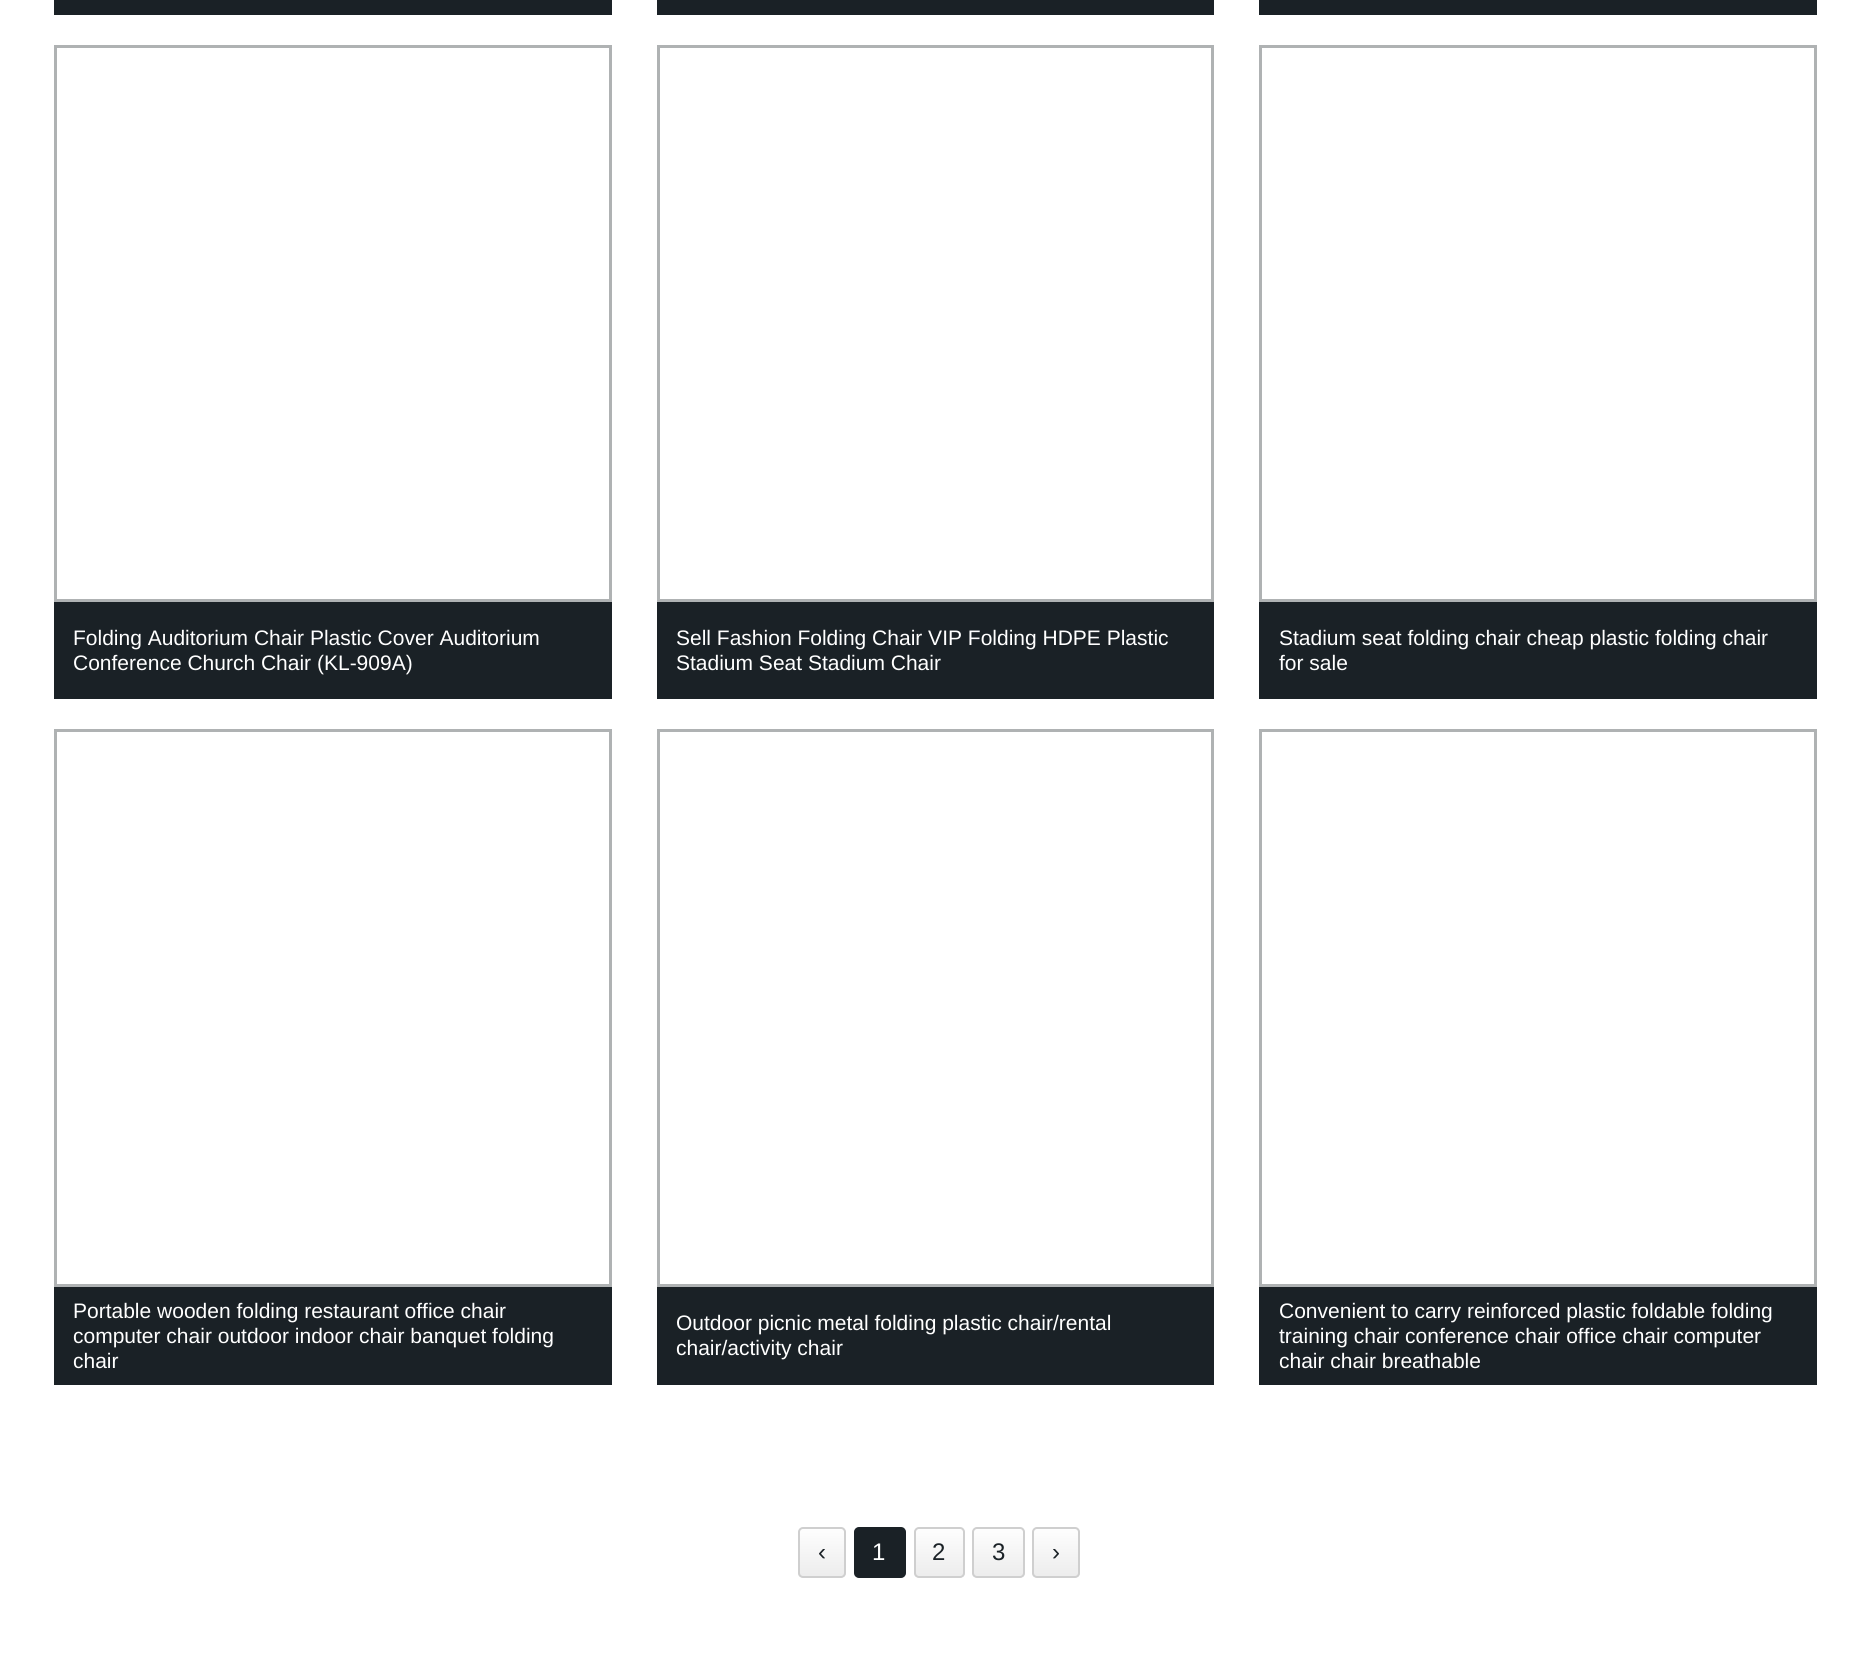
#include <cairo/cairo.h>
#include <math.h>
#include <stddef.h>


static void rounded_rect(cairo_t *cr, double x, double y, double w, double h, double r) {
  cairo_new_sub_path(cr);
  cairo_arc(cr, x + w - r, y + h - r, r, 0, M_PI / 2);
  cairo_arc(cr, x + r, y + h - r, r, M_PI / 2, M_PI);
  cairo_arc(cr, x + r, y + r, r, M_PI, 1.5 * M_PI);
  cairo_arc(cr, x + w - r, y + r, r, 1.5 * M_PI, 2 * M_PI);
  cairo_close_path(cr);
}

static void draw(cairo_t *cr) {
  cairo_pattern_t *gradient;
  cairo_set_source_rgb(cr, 1, 1, 1);
  cairo_paint(cr);
  cairo_set_source_rgb(cr, 26 / 255.0, 33 / 255.0, 38 / 255.0);
  cairo_rectangle(cr, 54, 0, 558, 15);
  cairo_fill(cr);
  cairo_rectangle(cr, 657, 0, 557, 15);
  cairo_fill(cr);
  cairo_rectangle(cr, 1259, 0, 558, 15);
  cairo_fill(cr);
  cairo_rectangle(cr, 55.5, 46.5, 555, 554);
  cairo_set_source_rgb(cr, 175 / 255.0, 178 / 255.0, 179 / 255.0);
  cairo_set_line_width(cr, 3);
  cairo_stroke(cr);
  cairo_set_source_rgb(cr, 26 / 255.0, 33 / 255.0, 38 / 255.0);
  cairo_rectangle(cr, 54, 602, 558, 97);
  cairo_fill(cr);
  cairo_rectangle(cr, 658.5, 46.5, 554, 554);
  cairo_set_source_rgb(cr, 175 / 255.0, 178 / 255.0, 179 / 255.0);
  cairo_stroke(cr);
  cairo_set_source_rgb(cr, 26 / 255.0, 33 / 255.0, 38 / 255.0);
  cairo_rectangle(cr, 657, 602, 557, 97);
  cairo_fill(cr);
  cairo_rectangle(cr, 1260.5, 46.5, 555, 554);
  cairo_set_source_rgb(cr, 175 / 255.0, 178 / 255.0, 179 / 255.0);
  cairo_stroke(cr);
  cairo_set_source_rgb(cr, 26 / 255.0, 33 / 255.0, 38 / 255.0);
  cairo_rectangle(cr, 1259, 602, 558, 97);
  cairo_fill(cr);
  cairo_rectangle(cr, 55.5, 730.5, 555, 555);
  cairo_set_source_rgb(cr, 175 / 255.0, 178 / 255.0, 179 / 255.0);
  cairo_stroke(cr);
  cairo_set_source_rgb(cr, 26 / 255.0, 33 / 255.0, 38 / 255.0);
  cairo_rectangle(cr, 54, 1287, 558, 98);
  cairo_fill(cr);
  cairo_rectangle(cr, 658.5, 730.5, 554, 555);
  cairo_set_source_rgb(cr, 175 / 255.0, 178 / 255.0, 179 / 255.0);
  cairo_stroke(cr);
  cairo_set_source_rgb(cr, 26 / 255.0, 33 / 255.0, 38 / 255.0);
  cairo_rectangle(cr, 657, 1287, 557, 98);
  cairo_fill(cr);
  cairo_rectangle(cr, 1260.5, 730.5, 555, 555);
  cairo_set_source_rgb(cr, 175 / 255.0, 178 / 255.0, 179 / 255.0);
  cairo_stroke(cr);
  cairo_set_source_rgb(cr, 26 / 255.0, 33 / 255.0, 38 / 255.0);
  cairo_rectangle(cr, 1259, 1287, 558, 98);
  cairo_fill(cr);
  cairo_save(cr);
  rounded_rect(cr, 798, 1527, 48, 51, 5);
  cairo_clip(cr);
  gradient = cairo_pattern_create_linear(800, 1529, 800, 1577);
  cairo_pattern_add_color_stop_rgba(gradient, 0, 254 / 255.0, 254 / 255.0, 254 / 255.0, 1);
  cairo_pattern_add_color_stop_rgba(gradient, 1, 236 / 255.0, 236 / 255.0, 236 / 255.0, 1);
  cairo_set_source(cr, gradient);
  cairo_pattern_destroy(gradient);
  cairo_rectangle(cr, 798, 1529, 48, 48);
  cairo_fill(cr);
  cairo_restore(cr);
  rounded_rect(cr, 799, 1528, 46, 49, 4);
  cairo_set_source_rgb(cr, 207 / 255.0, 207 / 255.0, 207 / 255.0);
  cairo_set_line_width(cr, 2);
  cairo_stroke(cr);
  cairo_set_source_rgb(cr, 26 / 255.0, 33 / 255.0, 38 / 255.0);
  rounded_rect(cr, 855, 1528, 50, 49, 4);
  cairo_fill_preserve(cr);
  cairo_stroke(cr);
  cairo_save(cr);
  rounded_rect(cr, 914, 1527, 51, 51, 5);
  cairo_clip(cr);
  gradient = cairo_pattern_create_linear(915, 1529, 915, 1577);
  cairo_pattern_add_color_stop_rgba(gradient, 0, 254 / 255.0, 254 / 255.0, 254 / 255.0, 1);
  cairo_pattern_add_color_stop_rgba(gradient, 1, 236 / 255.0, 236 / 255.0, 236 / 255.0, 1);
  cairo_set_source(cr, gradient);
  cairo_pattern_destroy(gradient);
  cairo_rectangle(cr, 914, 1529, 51, 48);
  cairo_fill(cr);
  cairo_restore(cr);
  rounded_rect(cr, 915, 1528, 49, 49, 4);
  cairo_set_source_rgb(cr, 207 / 255.0, 207 / 255.0, 207 / 255.0);
  cairo_stroke(cr);
  cairo_save(cr);
  rounded_rect(cr, 972, 1527, 53, 51, 5);
  cairo_clip(cr);
  gradient = cairo_pattern_create_linear(974, 1529, 974, 1577);
  cairo_pattern_add_color_stop_rgba(gradient, 0, 254 / 255.0, 254 / 255.0, 254 / 255.0, 1);
  cairo_pattern_add_color_stop_rgba(gradient, 1, 236 / 255.0, 236 / 255.0, 236 / 255.0, 1);
  cairo_set_source(cr, gradient);
  cairo_pattern_destroy(gradient);
  cairo_rectangle(cr, 972, 1529, 53, 48);
  cairo_fill(cr);
  cairo_restore(cr);
  rounded_rect(cr, 973, 1528, 51, 49, 4);
  cairo_stroke(cr);
  cairo_save(cr);
  rounded_rect(cr, 1032, 1527, 48, 51, 5);
  cairo_clip(cr);
  gradient = cairo_pattern_create_linear(1034, 1529, 1034, 1577);
  cairo_pattern_add_color_stop_rgba(gradient, 0, 254 / 255.0, 254 / 255.0, 254 / 255.0, 1);
  cairo_pattern_add_color_stop_rgba(gradient, 1, 236 / 255.0, 236 / 255.0, 236 / 255.0, 1);
  cairo_set_source(cr, gradient);
  cairo_pattern_destroy(gradient);
  cairo_rectangle(cr, 1032, 1529, 48, 48);
  cairo_fill(cr);
  cairo_restore(cr);
  rounded_rect(cr, 1033, 1528, 46, 49, 4);
  cairo_stroke(cr);
  cairo_select_font_face(cr, "Liberation Sans", CAIRO_FONT_SLANT_NORMAL, CAIRO_FONT_WEIGHT_NORMAL);
  cairo_set_font_size(cr, 21);
  cairo_set_source_rgb(cr, 1, 1, 1);
  cairo_move_to(cr, 73, 645);
  cairo_show_text(cr, "Folding Auditorium Chair Plastic Cover Auditorium");
  cairo_move_to(cr, 73, 670);
  cairo_show_text(cr, "Conference Church Chair (KL-909A)");
  cairo_move_to(cr, 676, 645);
  cairo_show_text(cr, "Sell Fashion Folding Chair VIP Folding HDPE Plastic");
  cairo_move_to(cr, 676, 670);
  cairo_show_text(cr, "Stadium Seat Stadium Chair");
  cairo_move_to(cr, 1279, 645);
  cairo_show_text(cr, "Stadium seat folding chair cheap plastic folding chair");
  cairo_move_to(cr, 1279, 670);
  cairo_show_text(cr, "for sale");
  cairo_move_to(cr, 73, 1318);
  cairo_show_text(cr, "Portable wooden folding restaurant office chair");
  cairo_move_to(cr, 73, 1343);
  cairo_show_text(cr, "computer chair outdoor indoor chair banquet folding");
  cairo_move_to(cr, 73, 1368);
  cairo_show_text(cr, "chair");
  cairo_move_to(cr, 676, 1330);
  cairo_show_text(cr, "Outdoor picnic metal folding plastic chair/rental");
  cairo_move_to(cr, 676, 1355);
  cairo_show_text(cr, "chair/activity chair");
  cairo_move_to(cr, 1279, 1318);
  cairo_show_text(cr, "Convenient to carry reinforced plastic foldable folding");
  cairo_move_to(cr, 1279, 1343);
  cairo_show_text(cr, "training chair conference chair office chair computer");
  cairo_move_to(cr, 1279, 1368);
  cairo_show_text(cr, "chair chair breathable");
  cairo_set_font_size(cr, 24);
  cairo_set_source_rgb(cr, 27 / 255.0, 34 / 255.0, 39 / 255.0);
  cairo_move_to(cr, 818, 1560);
  cairo_show_text(cr, "‹");
  cairo_set_source_rgb(cr, 1, 1, 1);
  cairo_move_to(cr, 872, 1560);
  cairo_show_text(cr, "1");
  cairo_set_source_rgb(cr, 27 / 255.0, 34 / 255.0, 39 / 255.0);
  cairo_move_to(cr, 932, 1560);
  cairo_show_text(cr, "2");
  cairo_move_to(cr, 992, 1560);
  cairo_show_text(cr, "3");
  cairo_move_to(cr, 1052, 1560);
  cairo_show_text(cr, "›");
}

int main(void) {
  cairo_surface_t *surface = cairo_image_surface_create(CAIRO_FORMAT_RGB24, 1870, 1658);
  cairo_t *cr = cairo_create(surface);
  cairo_font_options_t *options = cairo_font_options_create();
  cairo_font_options_set_hint_metrics(options, CAIRO_HINT_METRICS_OFF);
  cairo_font_options_set_hint_style(options, CAIRO_HINT_STYLE_NONE);
  cairo_set_font_options(cr, options);
  cairo_set_miter_limit(cr, 4);
  draw(cr);
  cairo_surface_write_to_png(surface, "out.png");
  cairo_font_options_destroy(options);
  cairo_destroy(cr);
  cairo_surface_destroy(surface);
  return 0;
}
